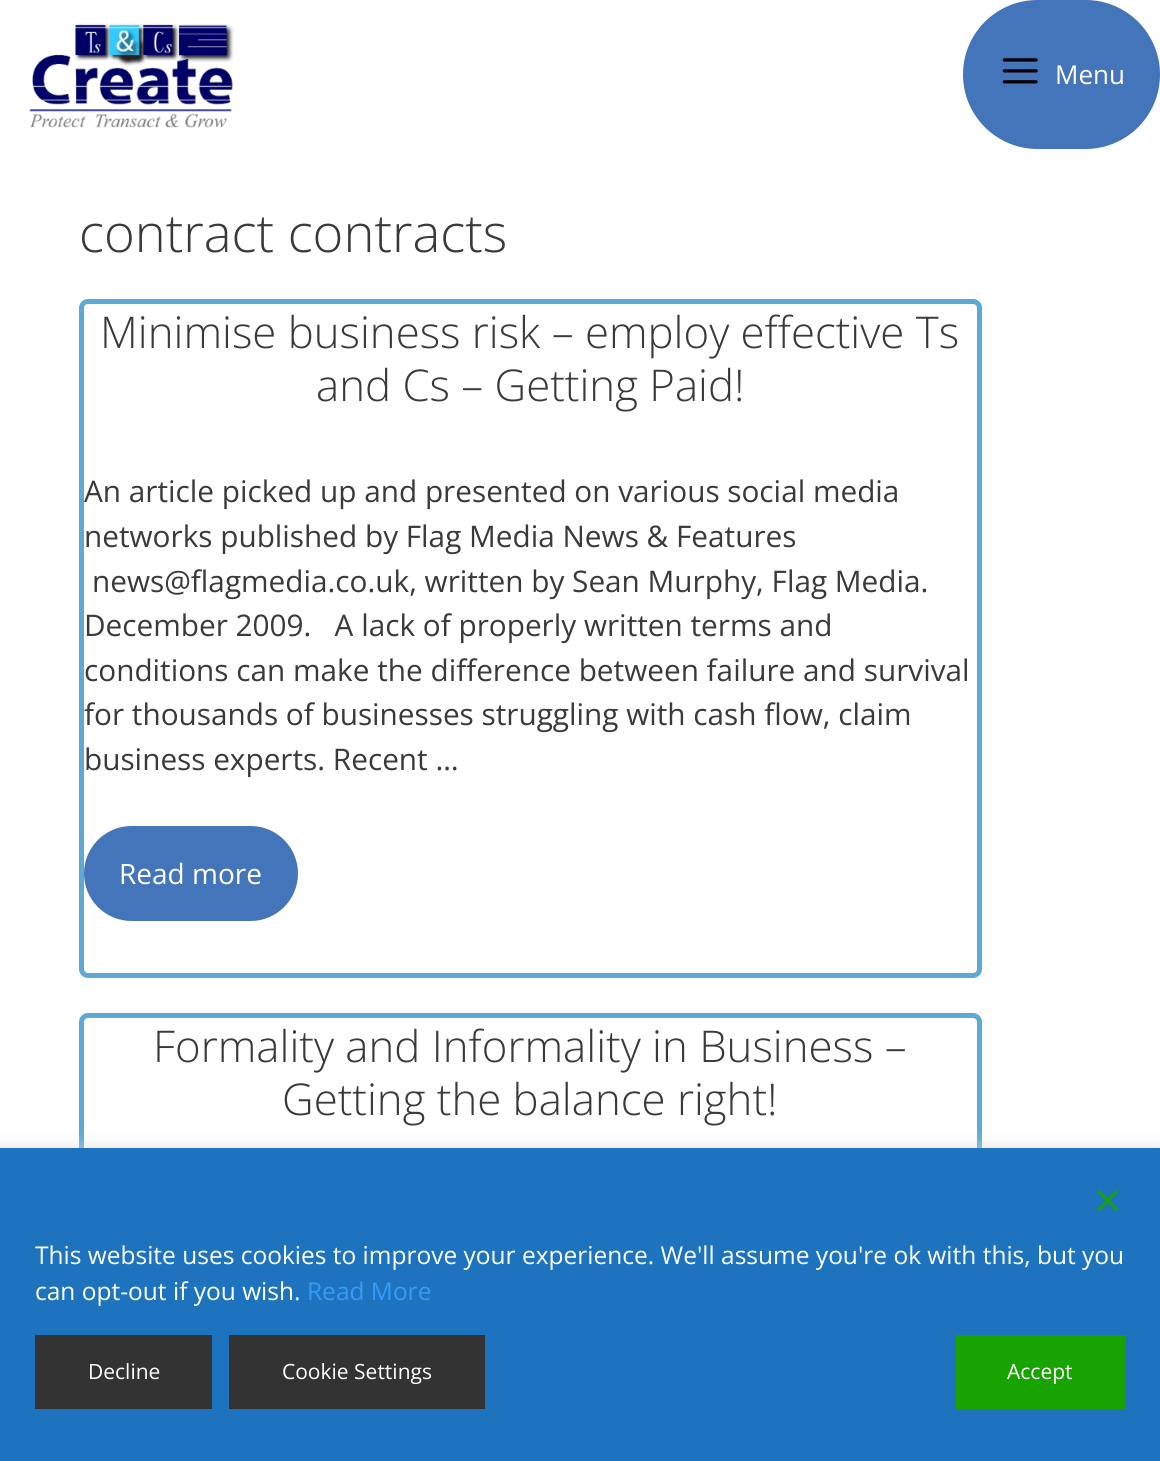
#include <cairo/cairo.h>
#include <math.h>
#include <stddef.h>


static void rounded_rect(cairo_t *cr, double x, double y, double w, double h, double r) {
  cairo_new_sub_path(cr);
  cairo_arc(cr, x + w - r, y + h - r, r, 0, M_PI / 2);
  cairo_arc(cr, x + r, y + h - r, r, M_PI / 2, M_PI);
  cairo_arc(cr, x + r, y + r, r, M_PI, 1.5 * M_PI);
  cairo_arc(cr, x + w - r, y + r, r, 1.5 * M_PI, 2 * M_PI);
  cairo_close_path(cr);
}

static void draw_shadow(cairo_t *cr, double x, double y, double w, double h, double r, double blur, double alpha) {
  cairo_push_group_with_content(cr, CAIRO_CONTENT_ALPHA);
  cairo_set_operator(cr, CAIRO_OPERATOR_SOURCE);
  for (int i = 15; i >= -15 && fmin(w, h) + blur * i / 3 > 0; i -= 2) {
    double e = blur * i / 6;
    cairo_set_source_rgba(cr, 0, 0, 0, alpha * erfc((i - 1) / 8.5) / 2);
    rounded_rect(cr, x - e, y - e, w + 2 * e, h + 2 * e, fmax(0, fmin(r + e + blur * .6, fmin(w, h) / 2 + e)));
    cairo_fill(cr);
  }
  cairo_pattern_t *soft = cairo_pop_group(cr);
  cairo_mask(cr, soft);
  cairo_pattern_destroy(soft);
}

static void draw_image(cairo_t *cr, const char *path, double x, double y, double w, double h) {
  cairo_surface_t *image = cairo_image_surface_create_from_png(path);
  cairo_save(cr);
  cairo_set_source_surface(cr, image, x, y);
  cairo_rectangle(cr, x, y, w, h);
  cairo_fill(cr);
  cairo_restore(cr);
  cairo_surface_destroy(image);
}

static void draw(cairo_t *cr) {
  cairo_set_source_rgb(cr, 1, 1, 1);
  cairo_paint(cr);
  draw_image(cr, "images/1.png", 29, 23, 205, 105);
  cairo_set_source_rgb(cr, 68 / 255.0, 117 / 255.0, 186 / 255.0);
  rounded_rect(cr, 963, 0, 197, 149, 74.5);
  cairo_fill(cr);
  draw_image(cr, "images/2.png", 1002, 58, 36, 26);
  rounded_rect(cr, 81.5, 301.5, 898, 674, 6.5);
  cairo_set_source_rgb(cr, 92 / 255.0, 169 / 255.0, 213 / 255.0);
  cairo_set_line_width(cr, 5);
  cairo_stroke(cr);
  cairo_set_source_rgb(cr, 68 / 255.0, 117 / 255.0, 186 / 255.0);
  rounded_rect(cr, 84, 826, 214, 95, 47.5);
  cairo_fill(cr);
  rounded_rect(cr, 81.5, 1015.5, 898, 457, 6.5);
  cairo_set_source_rgb(cr, 92 / 255.0, 169 / 255.0, 213 / 255.0);
  cairo_stroke(cr);
  cairo_set_source_rgb(cr, 221 / 255.0, 221 / 255.0, 221 / 255.0);
  draw_shadow(cr, -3, 1150, 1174, 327, 0, 9.5, 1);
  cairo_set_source_rgb(cr, 30 / 255.0, 115 / 255.0, 190 / 255.0);
  cairo_rectangle(cr, 0, 1148, 1160, 313);
  cairo_fill(cr);
  draw_image(cr, "images/3.png", 1097, 1190, 21, 21);
  cairo_set_source_rgb(cr, 51 / 255.0, 51 / 255.0, 51 / 255.0);
  cairo_rectangle(cr, 35, 1335, 177, 74);
  cairo_fill(cr);
  cairo_rectangle(cr, 229, 1335, 256, 74);
  cairo_fill(cr);
  cairo_set_source_rgb(cr, 24 / 255.0, 163 / 255.0, 0);
  cairo_rectangle(cr, 956, 1335, 169, 74);
  cairo_fill(cr);
  cairo_select_font_face(cr, "Open Sans", CAIRO_FONT_SLANT_NORMAL, CAIRO_FONT_WEIGHT_NORMAL);
  cairo_set_font_size(cr, 26);
  cairo_set_source_rgb(cr, 1, 1, 1);
  cairo_move_to(cr, 1055, 84);
  cairo_show_text(cr, "Menu");
  cairo_select_font_face(cr, "Open Sans Light", CAIRO_FONT_SLANT_NORMAL, CAIRO_FONT_WEIGHT_NORMAL);
  cairo_set_font_size(cr, 52.5);
  cairo_set_source_rgb(cr, 58 / 255.0, 58 / 255.0, 58 / 255.0);
  cairo_move_to(cr, 79, 252);
  cairo_show_text(cr, "contract contracts");
  cairo_set_font_size(cr, 43.75);
  cairo_move_to(cr, 100, 348);
  cairo_show_text(cr, "Minimise business risk – employ effective Ts");
  cairo_move_to(cr, 316, 401);
  cairo_show_text(cr, "and Cs – Getting Paid!");
  cairo_select_font_face(cr, "Open Sans", CAIRO_FONT_SLANT_NORMAL, CAIRO_FONT_WEIGHT_NORMAL);
  cairo_set_font_size(cr, 29.75);
  cairo_move_to(cr, 84, 502);
  cairo_show_text(cr, "An article picked up and presented on various social media");
  cairo_move_to(cr, 84, 547);
  cairo_show_text(cr, "networks published by Flag Media News & Features");
  cairo_move_to(cr, 92, 592);
  cairo_show_text(cr, "news@flagmedia.co.uk, written by Sean Murphy, Flag Media.");
  cairo_move_to(cr, 84, 636);
  cairo_show_text(cr, "December 2009.   A lack of properly written terms and");
  cairo_move_to(cr, 84, 681);
  cairo_show_text(cr, "conditions can make the difference between failure and survival");
  cairo_move_to(cr, 84, 725);
  cairo_show_text(cr, "for thousands of businesses struggling with cash flow, claim");
  cairo_move_to(cr, 84, 770);
  cairo_show_text(cr, "business experts. Recent …");
  cairo_set_font_size(cr, 28);
  cairo_set_source_rgb(cr, 1, 1, 1);
  cairo_move_to(cr, 119, 884);
  cairo_show_text(cr, "Read more");
  cairo_select_font_face(cr, "Open Sans Light", CAIRO_FONT_SLANT_NORMAL, CAIRO_FONT_WEIGHT_NORMAL);
  cairo_set_font_size(cr, 43.75);
  cairo_set_source_rgb(cr, 58 / 255.0, 58 / 255.0, 58 / 255.0);
  cairo_move_to(cr, 153, 1062);
  cairo_show_text(cr, "Formality and Informality in Business –");
  cairo_move_to(cr, 282, 1115);
  cairo_show_text(cr, "Getting the balance right!");
  cairo_select_font_face(cr, "Open Sans", CAIRO_FONT_SLANT_NORMAL, CAIRO_FONT_WEIGHT_NORMAL);
  cairo_set_font_size(cr, 24.5);
  cairo_set_source_rgb(cr, 1, 1, 1);
  cairo_move_to(cr, 35, 1264);
  cairo_show_text(cr, "This website uses cookies to improve your experience. We'll assume you're ok with this, but you");
  cairo_move_to(cr, 35, 1300);
  cairo_show_text(cr, "can opt-out if you wish.");
  cairo_set_source_rgb(cr, 53 / 255.0, 155 / 255.0, 245 / 255.0);
  cairo_move_to(cr, 307, 1300);
  cairo_show_text(cr, "Read More");
  cairo_set_font_size(cr, 21);
  cairo_set_source_rgb(cr, 1, 1, 1);
  cairo_move_to(cr, 88, 1379);
  cairo_show_text(cr, "Decline");
  cairo_move_to(cr, 282, 1379);
  cairo_show_text(cr, "Cookie Settings");
  cairo_move_to(cr, 1007, 1379);
  cairo_show_text(cr, "Accept");
}

int main(void) {
  cairo_surface_t *surface = cairo_image_surface_create(CAIRO_FORMAT_RGB24, 1160, 1461);
  cairo_t *cr = cairo_create(surface);
  cairo_font_options_t *options = cairo_font_options_create();
  cairo_font_options_set_hint_metrics(options, CAIRO_HINT_METRICS_OFF);
  cairo_font_options_set_hint_style(options, CAIRO_HINT_STYLE_NONE);
  cairo_set_font_options(cr, options);
  cairo_set_miter_limit(cr, 4);
  draw(cr);
  cairo_surface_write_to_png(surface, "out.png");
  cairo_font_options_destroy(options);
  cairo_destroy(cr);
  cairo_surface_destroy(surface);
  return 0;
}
